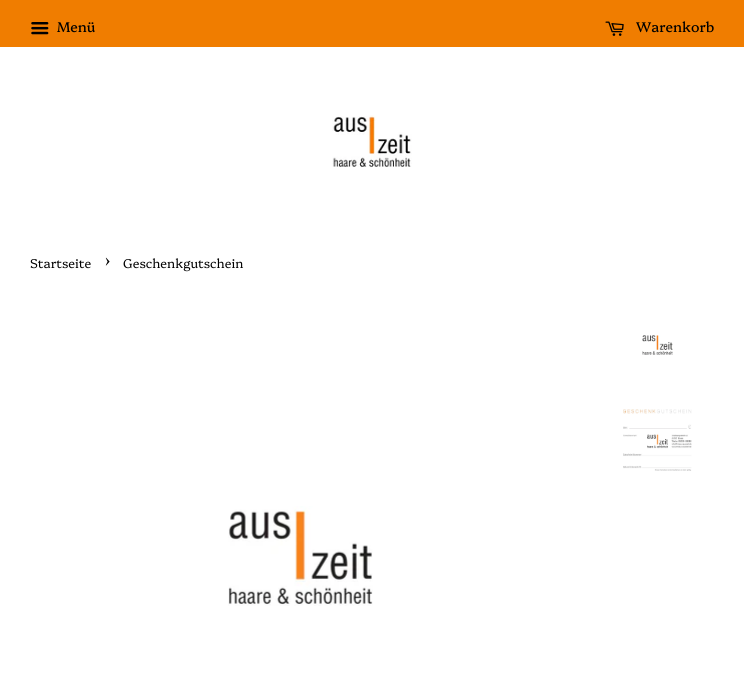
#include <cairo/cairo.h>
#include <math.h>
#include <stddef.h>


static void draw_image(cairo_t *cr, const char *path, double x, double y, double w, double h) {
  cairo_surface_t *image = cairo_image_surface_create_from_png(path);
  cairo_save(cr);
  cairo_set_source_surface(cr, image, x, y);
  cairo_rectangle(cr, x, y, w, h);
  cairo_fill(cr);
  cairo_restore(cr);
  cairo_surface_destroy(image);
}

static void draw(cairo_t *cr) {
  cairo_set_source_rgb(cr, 1, 1, 1);
  cairo_paint(cr);
  cairo_set_source_rgb(cr, 240 / 255.0, 125 / 255.0, 0);
  cairo_rectangle(cr, 0, 0, 744, 47);
  cairo_fill(cr);
  draw_image(cr, "images/1.png", 31, 22, 18, 13);
  draw_image(cr, "images/2.png", 605, 21, 19, 15);
  draw_image(cr, "images/3.png", 332, 115, 80, 52);
  draw_image(cr, "images/4.png", 642, 335, 31, 20);
  draw_image(cr, "images/5.png", 623, 409, 69, 62);
  draw_image(cr, "images/6.png", 228, 506, 145, 100);
  cairo_select_font_face(cr, "Platypi", CAIRO_FONT_SLANT_NORMAL, CAIRO_FONT_WEIGHT_NORMAL);
  cairo_set_font_size(cr, 14);
  cairo_set_source_rgb(cr, 0, 0, 0);
  cairo_move_to(cr, 57, 32);
  cairo_show_text(cr, "Menü");
  cairo_move_to(cr, 636, 32);
  cairo_show_text(cr, "Warenkorb");
  cairo_select_font_face(cr, "Platypi Light", CAIRO_FONT_SLANT_NORMAL, CAIRO_FONT_WEIGHT_NORMAL);
  cairo_set_font_size(cr, 12.75);
  cairo_move_to(cr, 30, 268);
  cairo_show_text(cr, "Startseite");
  cairo_set_font_size(cr, 18);
  cairo_move_to(cr, 105, 268);
  cairo_show_text(cr, "›");
  cairo_set_font_size(cr, 12.75);
  cairo_move_to(cr, 123, 268);
  cairo_show_text(cr, "Geschenkgutschein");
}

int main(void) {
  cairo_surface_t *surface = cairo_image_surface_create(CAIRO_FORMAT_RGB24, 744, 684);
  cairo_t *cr = cairo_create(surface);
  cairo_font_options_t *options = cairo_font_options_create();
  cairo_font_options_set_hint_metrics(options, CAIRO_HINT_METRICS_OFF);
  cairo_font_options_set_hint_style(options, CAIRO_HINT_STYLE_NONE);
  cairo_set_font_options(cr, options);
  cairo_set_miter_limit(cr, 4);
  draw(cr);
  cairo_surface_write_to_png(surface, "out.png");
  cairo_font_options_destroy(options);
  cairo_destroy(cr);
  cairo_surface_destroy(surface);
  return 0;
}
